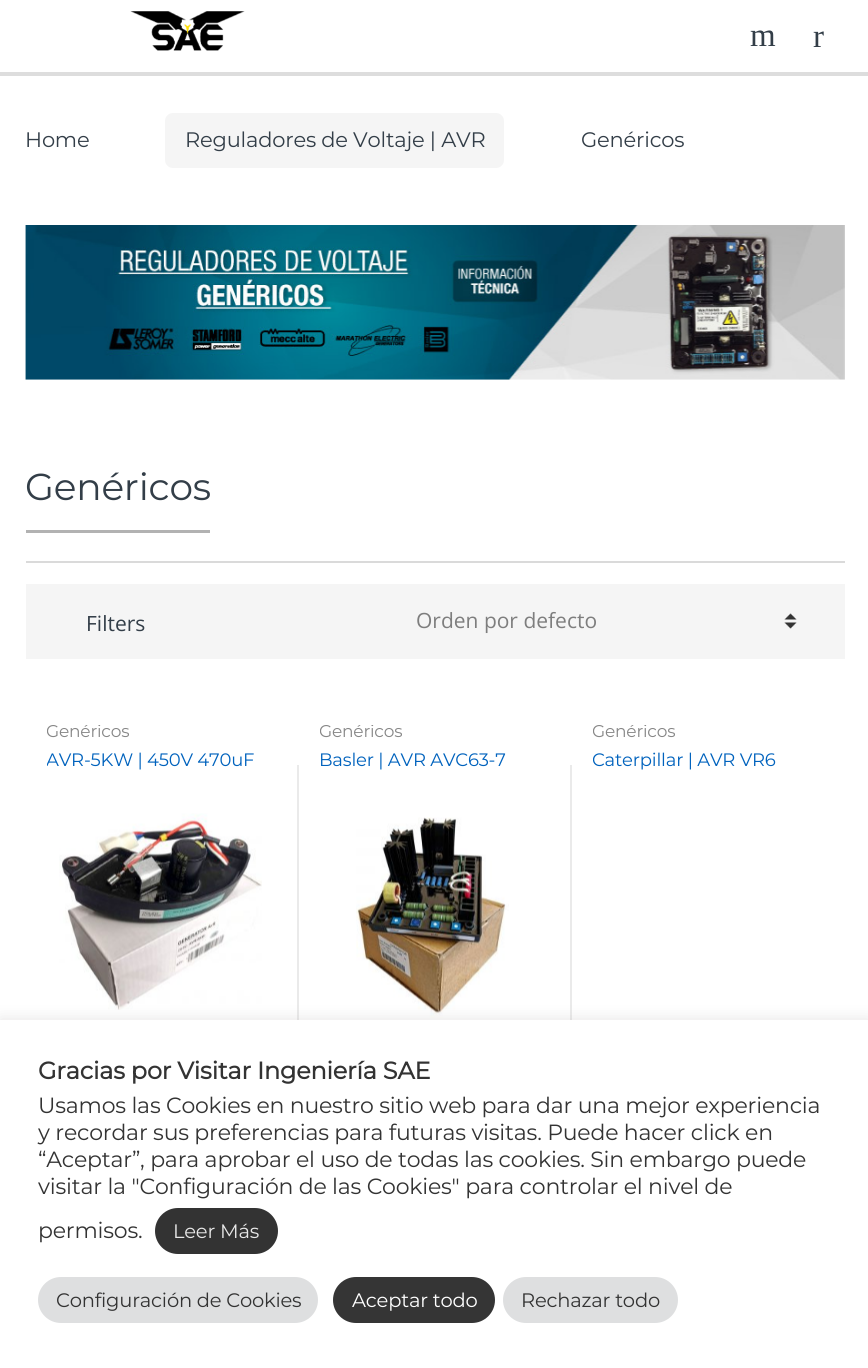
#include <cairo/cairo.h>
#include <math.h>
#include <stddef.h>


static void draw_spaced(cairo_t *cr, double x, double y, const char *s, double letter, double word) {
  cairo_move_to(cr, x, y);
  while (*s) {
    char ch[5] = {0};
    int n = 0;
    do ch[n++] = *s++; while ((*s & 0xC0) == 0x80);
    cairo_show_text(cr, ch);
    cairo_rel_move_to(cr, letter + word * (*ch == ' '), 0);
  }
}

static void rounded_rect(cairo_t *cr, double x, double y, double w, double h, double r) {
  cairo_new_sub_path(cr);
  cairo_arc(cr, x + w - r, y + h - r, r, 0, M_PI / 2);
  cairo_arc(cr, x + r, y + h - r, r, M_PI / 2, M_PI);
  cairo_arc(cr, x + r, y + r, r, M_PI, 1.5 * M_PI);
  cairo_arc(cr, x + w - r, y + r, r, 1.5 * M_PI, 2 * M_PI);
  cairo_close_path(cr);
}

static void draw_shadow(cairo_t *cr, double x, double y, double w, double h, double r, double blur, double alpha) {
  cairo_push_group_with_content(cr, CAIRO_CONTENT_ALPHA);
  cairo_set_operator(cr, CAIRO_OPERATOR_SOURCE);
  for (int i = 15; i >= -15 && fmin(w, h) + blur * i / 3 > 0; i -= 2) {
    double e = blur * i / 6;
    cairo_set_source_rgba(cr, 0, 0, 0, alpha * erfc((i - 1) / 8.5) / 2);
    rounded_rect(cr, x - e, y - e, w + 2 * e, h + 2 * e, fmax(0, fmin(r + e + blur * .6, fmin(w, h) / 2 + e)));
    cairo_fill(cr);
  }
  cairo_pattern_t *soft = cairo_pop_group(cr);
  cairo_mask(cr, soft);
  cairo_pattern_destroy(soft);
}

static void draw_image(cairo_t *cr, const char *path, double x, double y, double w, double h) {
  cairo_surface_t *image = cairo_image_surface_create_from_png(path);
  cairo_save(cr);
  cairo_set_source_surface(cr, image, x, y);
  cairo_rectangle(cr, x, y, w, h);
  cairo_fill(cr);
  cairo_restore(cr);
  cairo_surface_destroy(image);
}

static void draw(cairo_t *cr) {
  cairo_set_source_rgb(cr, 1, 1, 1);
  cairo_paint(cr);
  cairo_set_source_rgb(cr, 221 / 255.0, 221 / 255.0, 221 / 255.0);
  cairo_rectangle(cr, 0, 72, 868, 4);
  cairo_fill(cr);
  draw_image(cr, "images/1.png", 130, 11, 115, 40);
  cairo_set_source_rgb(cr, 245 / 255.0, 245 / 255.0, 245 / 255.0);
  rounded_rect(cr, 165, 113, 339, 55, 8);
  cairo_fill(cr);
  draw_image(cr, "images/2.png", 25, 225, 820, 155);
  cairo_set_source_rgb(cr, 218 / 255.0, 218 / 255.0, 218 / 255.0);
  cairo_rectangle(cr, 26, 561, 819, 2);
  cairo_fill(cr);
  cairo_set_source_rgb(cr, 178 / 255.0, 178 / 255.0, 178 / 255.0);
  cairo_rectangle(cr, 26, 530, 184, 3);
  cairo_fill(cr);
  cairo_set_source_rgb(cr, 245 / 255.0, 245 / 255.0, 245 / 255.0);
  cairo_rectangle(cr, 26, 584, 819, 75);
  cairo_fill(cr);
  draw_image(cr, "images/3.png", 784, 613, 13, 16);
  draw_image(cr, "images/4.png", 59, 813, 203, 197);
  cairo_set_source_rgb(cr, 234 / 255.0, 234 / 255.0, 234 / 255.0);
  cairo_rectangle(cr, 297, 765, 2, 255);
  cairo_fill(cr);
  draw_image(cr, "images/5.png", 356, 817, 153, 201);
  cairo_rectangle(cr, 570, 765, 2, 255);
  cairo_fill(cr);
  cairo_set_source_rgb(cr, 172 / 255.0, 171 / 255.0, 171 / 255.0);
  draw_shadow(cr, 0, 1019, 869, 348, 0, 7.5, 0.3);
  cairo_set_source_rgb(cr, 1, 1, 1);
  cairo_rectangle(cr, 0, 1020, 868, 348);
  cairo_fill(cr);
  cairo_set_source_rgb(cr, 51 / 255.0, 51 / 255.0, 51 / 255.0);
  rounded_rect(cr, 155, 1208, 123, 46, 23);
  cairo_fill(cr);
  cairo_set_source_rgb(cr, 222 / 255.0, 223 / 255.0, 224 / 255.0);
  rounded_rect(cr, 38, 1277, 280, 46, 23);
  cairo_fill(cr);
  cairo_set_source_rgb(cr, 53 / 255.0, 53 / 255.0, 53 / 255.0);
  rounded_rect(cr, 333, 1277, 162, 46, 23);
  cairo_fill(cr);
  cairo_set_source_rgb(cr, 222 / 255.0, 223 / 255.0, 224 / 255.0);
  rounded_rect(cr, 503, 1277, 175, 46, 23);
  cairo_fill(cr);
  cairo_select_font_face(cr, "Liberation Serif", CAIRO_FONT_SLANT_NORMAL, CAIRO_FONT_WEIGHT_NORMAL);
  cairo_set_font_size(cr, 33);
  cairo_set_source_rgb(cr, 51 / 255.0, 62 / 255.0, 72 / 255.0);
  draw_spaced(cr, 750, 46, "m", -0.2, 0);
  draw_spaced(cr, 813, 47, "r", -0.2, 0);
  cairo_select_font_face(cr, "Montserrat Thin", CAIRO_FONT_SLANT_NORMAL, CAIRO_FONT_WEIGHT_NORMAL);
  cairo_set_font_size(cr, 21);
  draw_spaced(cr, 25, 147, "Home", -0.2, 0);
  draw_spaced(cr, 185, 147, "Reguladores de Voltaje | AVR", -0.2, 0);
  draw_spaced(cr, 581, 147, "Genéricos", -0.2, 0);
  cairo_set_font_size(cr, 37.5);
  draw_spaced(cr, 25, 500, "Genéricos", -0.2, 0);
  cairo_select_font_face(cr, "Open Sans", CAIRO_FONT_SLANT_NORMAL, CAIRO_FONT_WEIGHT_NORMAL);
  cairo_set_font_size(cr, 21);
  cairo_move_to(cr, 86, 631);
  cairo_show_text(cr, "Filters");
  cairo_set_source_rgb(cr, 126 / 255.0, 126 / 255.0, 126 / 255.0);
  cairo_move_to(cr, 416, 628);
  cairo_show_text(cr, "Orden por defecto");
  cairo_save(cr);
  cairo_rectangle(cr, 47, 725, 231, 18);
  cairo_clip(cr);
  cairo_select_font_face(cr, "Montserrat Thin", CAIRO_FONT_SLANT_NORMAL, CAIRO_FONT_WEIGHT_NORMAL);
  cairo_set_font_size(cr, 17);
  cairo_set_source_rgb(cr, 135 / 255.0, 135 / 255.0, 135 / 255.0);
  draw_spaced(cr, 46, 737, "Genéricos", -0.2, 0);
  cairo_restore(cr);
  cairo_save(cr);
  cairo_rectangle(cr, 47, 749, 231, 42);
  cairo_clip(cr);
  cairo_select_font_face(cr, "Montserrat Thin", CAIRO_FONT_SLANT_NORMAL, CAIRO_FONT_WEIGHT_NORMAL);
  cairo_set_font_size(cr, 18);
  cairo_set_source_rgb(cr, 0, 98 / 255.0, 189 / 255.0);
  draw_spaced(cr, 46, 766, "AVR-5KW | 450V 470uF", -0.2, 0);
  cairo_restore(cr);
  cairo_save(cr);
  cairo_rectangle(cr, 320, 725, 231, 18);
  cairo_clip(cr);
  cairo_select_font_face(cr, "Montserrat Thin", CAIRO_FONT_SLANT_NORMAL, CAIRO_FONT_WEIGHT_NORMAL);
  cairo_set_font_size(cr, 17);
  cairo_set_source_rgb(cr, 135 / 255.0, 135 / 255.0, 135 / 255.0);
  draw_spaced(cr, 319, 737, "Genéricos", -0.2, 0);
  cairo_restore(cr);
  cairo_select_font_face(cr, "Montserrat Thin", CAIRO_FONT_SLANT_NORMAL, CAIRO_FONT_WEIGHT_NORMAL);
  cairo_set_font_size(cr, 18);
  cairo_set_source_rgb(cr, 0, 98 / 255.0, 189 / 255.0);
  draw_spaced(cr, 319, 766, "Basler | AVR AVC63-7", -0.2, 0);
  cairo_save(cr);
  cairo_rectangle(cr, 593, 725, 231, 18);
  cairo_clip(cr);
  cairo_set_font_size(cr, 17);
  cairo_set_source_rgb(cr, 135 / 255.0, 135 / 255.0, 135 / 255.0);
  draw_spaced(cr, 592, 737, "Genéricos", -0.2, 0);
  cairo_restore(cr);
  cairo_save(cr);
  cairo_rectangle(cr, 593, 749, 231, 42);
  cairo_clip(cr);
  draw_spaced(cr, 592, 766, "Caterpillar | AVR VR6", -0.2, 0);
  cairo_restore(cr);
  cairo_select_font_face(cr, "Montserrat", CAIRO_FONT_SLANT_NORMAL, CAIRO_FONT_WEIGHT_BOLD);
  cairo_set_font_size(cr, 24);
  cairo_set_source_rgb(cr, 51 / 255.0, 51 / 255.0, 51 / 255.0);
  draw_spaced(cr, 38, 1079, "Gracias por Visitar Ingeniería SAE", -0.2, 0);
  cairo_select_font_face(cr, "Montserrat Thin", CAIRO_FONT_SLANT_NORMAL, CAIRO_FONT_WEIGHT_NORMAL);
  cairo_set_font_size(cr, 22);
  draw_spaced(cr, 38, 1113, "Usamos las Cookies en nuestro sitio web para dar una mejor experiencia", -0.2, 0);
  draw_spaced(cr, 38, 1140, "y recordar sus preferencias para futuras visitas. Puede hacer click en", -0.2, 0);
  draw_spaced(cr, 38, 1167, "“Aceptar”, para aprobar el uso de todas las cookies. Sin embargo puede", -0.2, 0);
  draw_spaced(cr, 38, 1194, "visitar la \"Configuración de las Cookies\" para controlar el nivel de", -0.2, 0);
  draw_spaced(cr, 38, 1238, "permisos.", -0.2, 0);
  cairo_set_font_size(cr, 19.5);
  cairo_set_source_rgb(cr, 232 / 255.0, 232 / 255.0, 232 / 255.0);
  draw_spaced(cr, 173, 1238, "Leer Más", -0.2, 0);
  cairo_set_source_rgb(cr, 51 / 255.0, 51 / 255.0, 51 / 255.0);
  draw_spaced(cr, 56, 1307, "Configuración de Cookies", -0.2, 0);
  cairo_set_source_rgb(cr, 1, 1, 1);
  draw_spaced(cr, 352, 1307, "Aceptar todo", -0.2, 0);
  cairo_set_source_rgb(cr, 51 / 255.0, 51 / 255.0, 51 / 255.0);
  draw_spaced(cr, 521, 1307, "Rechazar todo", -0.2, 0);
}

int main(void) {
  cairo_surface_t *surface = cairo_image_surface_create(CAIRO_FORMAT_RGB24, 868, 1368);
  cairo_t *cr = cairo_create(surface);
  cairo_font_options_t *options = cairo_font_options_create();
  cairo_font_options_set_hint_metrics(options, CAIRO_HINT_METRICS_OFF);
  cairo_font_options_set_hint_style(options, CAIRO_HINT_STYLE_NONE);
  cairo_set_font_options(cr, options);
  cairo_set_miter_limit(cr, 4);
  draw(cr);
  cairo_surface_write_to_png(surface, "out.png");
  cairo_font_options_destroy(options);
  cairo_destroy(cr);
  cairo_surface_destroy(surface);
  return 0;
}
